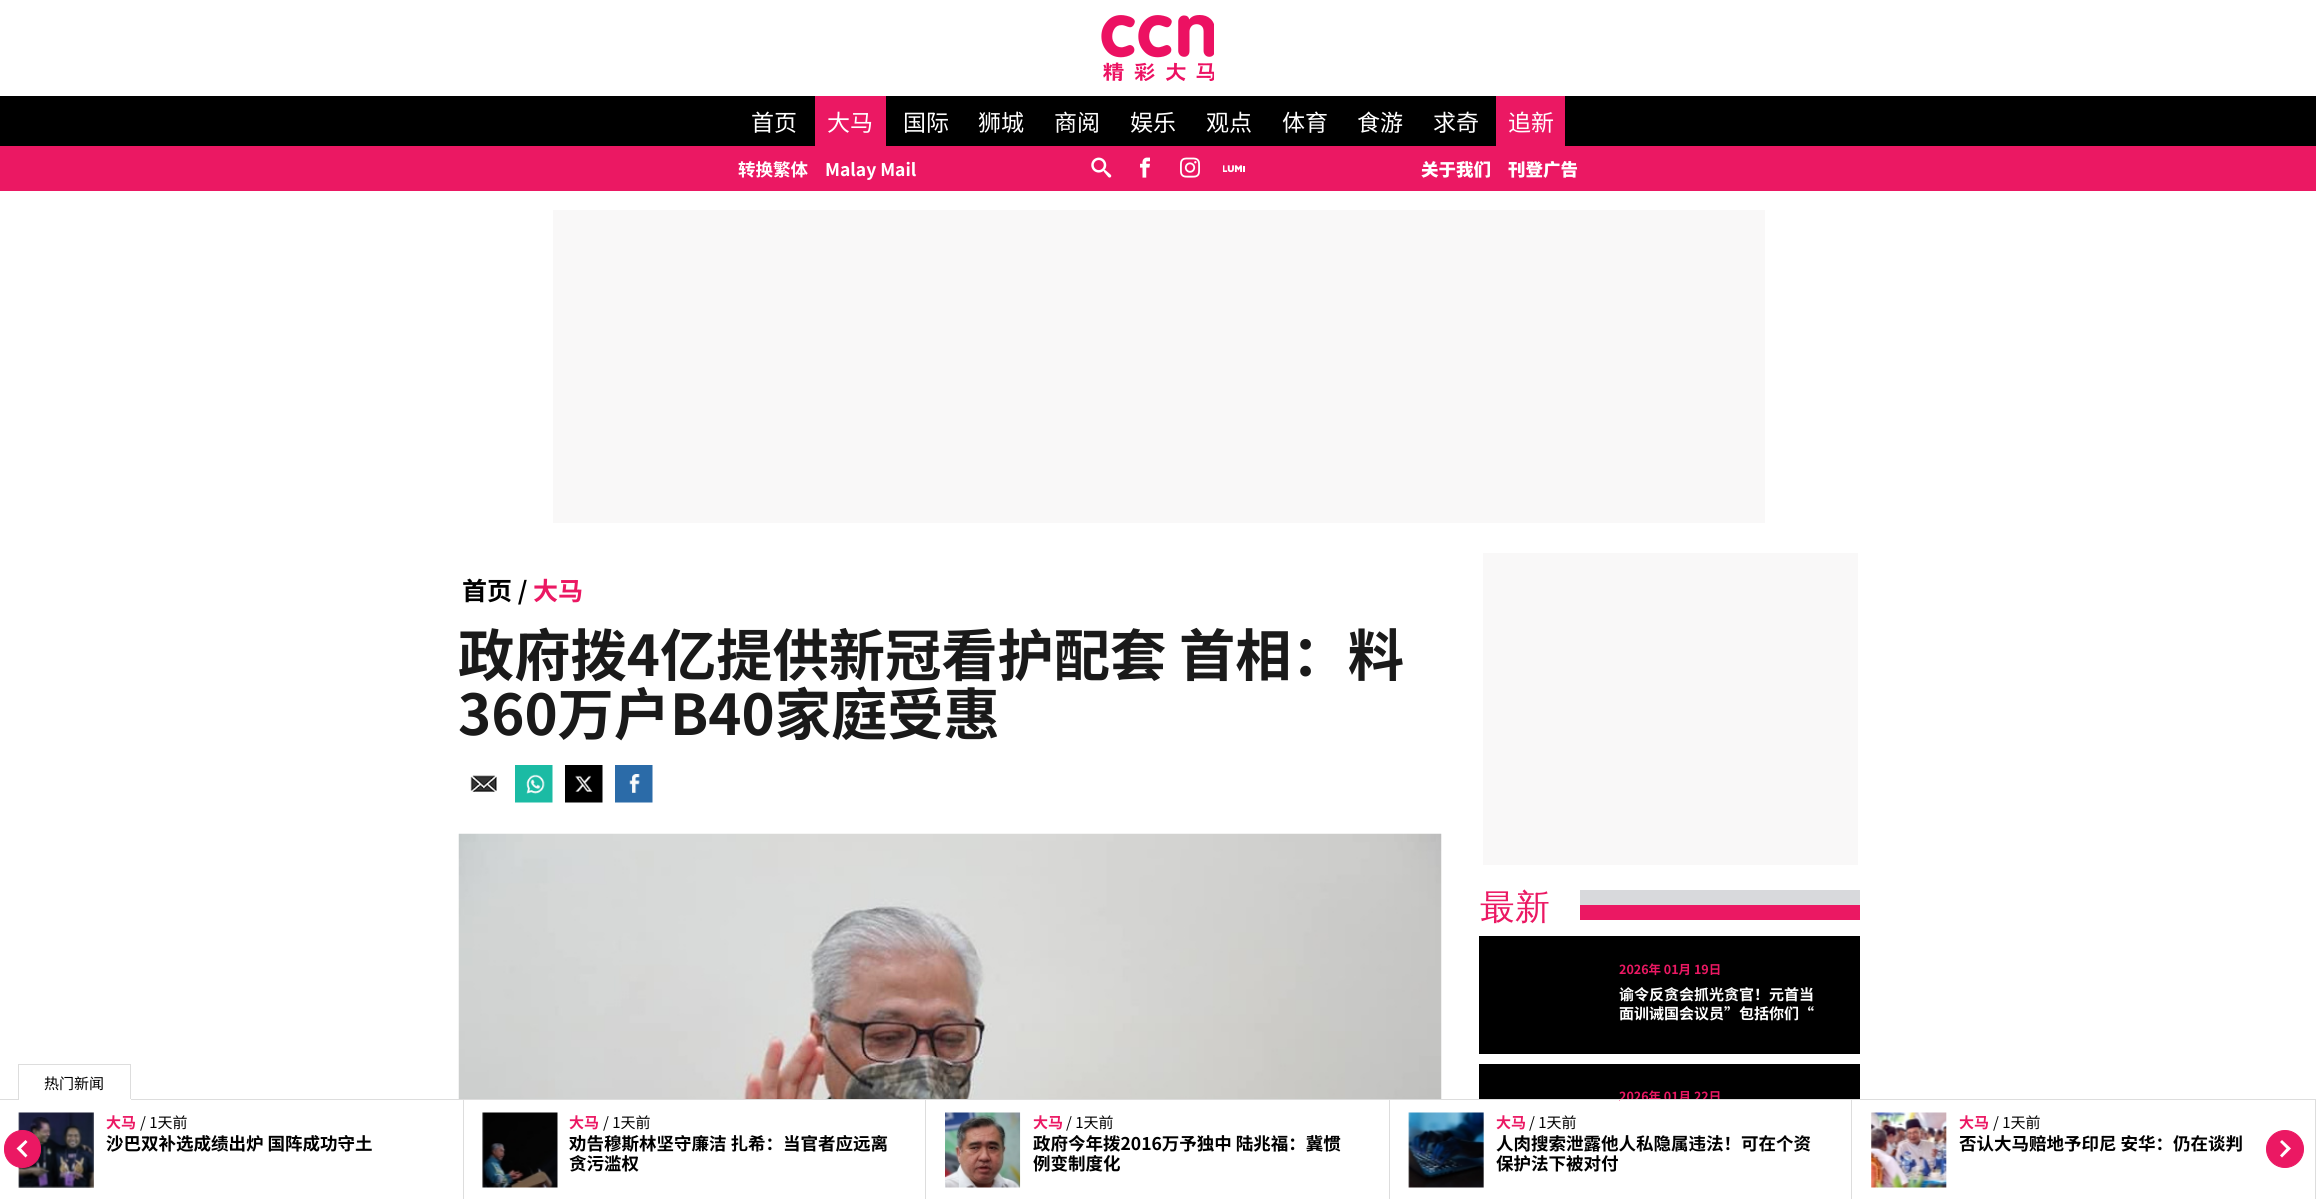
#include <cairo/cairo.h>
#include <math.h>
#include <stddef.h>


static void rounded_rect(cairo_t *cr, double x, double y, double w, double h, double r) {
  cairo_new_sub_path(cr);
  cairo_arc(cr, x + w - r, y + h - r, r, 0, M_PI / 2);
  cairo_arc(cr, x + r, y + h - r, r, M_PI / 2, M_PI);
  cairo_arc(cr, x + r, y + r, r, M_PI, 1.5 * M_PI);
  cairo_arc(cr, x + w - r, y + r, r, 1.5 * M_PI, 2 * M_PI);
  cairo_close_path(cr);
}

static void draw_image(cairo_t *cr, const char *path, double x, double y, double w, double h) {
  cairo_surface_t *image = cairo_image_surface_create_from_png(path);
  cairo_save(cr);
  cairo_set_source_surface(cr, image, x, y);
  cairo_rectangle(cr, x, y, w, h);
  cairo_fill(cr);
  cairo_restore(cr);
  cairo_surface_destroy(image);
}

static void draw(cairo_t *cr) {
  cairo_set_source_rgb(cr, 1, 1, 1);
  cairo_paint(cr);
  draw_image(cr, "images/1.png", 1101, 15, 113, 66);
  cairo_set_source_rgb(cr, 0, 0, 0);
  cairo_rectangle(cr, 0, 96, 2316, 50);
  cairo_fill(cr);
  cairo_set_source_rgb(cr, 235 / 255.0, 24 / 255.0, 99 / 255.0);
  cairo_rectangle(cr, 815, 96, 71, 50);
  cairo_fill(cr);
  cairo_rectangle(cr, 1496, 96, 69, 50);
  cairo_fill(cr);
  cairo_rectangle(cr, 0, 146, 2316, 45);
  cairo_fill(cr);
  draw_image(cr, "images/2.png", 1091, 157, 21, 21);
  draw_image(cr, "images/3.png", 1140, 157, 10, 21);
  draw_image(cr, "images/4.png", 1180, 157, 20, 21);
  draw_image(cr, "images/5.png", 1223, 165, 22, 8);
  cairo_set_source_rgb(cr, 249 / 255.0, 248 / 255.0, 248 / 255.0);
  cairo_rectangle(cr, 553, 210, 1212, 313);
  cairo_fill(cr);
  draw_image(cr, "images/6.png", 470, 775, 27, 18);
  draw_image(cr, "images/7.png", 515, 765, 38, 38);
  draw_image(cr, "images/8.png", 565, 765, 38, 38);
  draw_image(cr, "images/9.png", 615, 765, 38, 38);
  draw_image(cr, "images/10.png", 458, 833, 984, 266);
  cairo_rectangle(cr, 1483, 553, 375, 312);
  cairo_fill(cr);
  cairo_set_source_rgb(cr, 216 / 255.0, 217 / 255.0, 220 / 255.0);
  cairo_rectangle(cr, 1580, 890, 280, 15);
  cairo_fill(cr);
  cairo_set_source_rgb(cr, 235 / 255.0, 24 / 255.0, 99 / 255.0);
  cairo_rectangle(cr, 1580, 905, 280, 15);
  cairo_fill(cr);
  cairo_set_source_rgb(cr, 0, 0, 0);
  cairo_rectangle(cr, 1479, 936, 381, 118);
  cairo_fill(cr);
  cairo_rectangle(cr, 1479, 1064, 381, 35);
  cairo_fill(cr);
  cairo_set_source_rgb(cr, 221 / 255.0, 221 / 255.0, 221 / 255.0);
  cairo_rectangle(cr, 18, 1064, 113, 1);
  cairo_fill(cr);
  cairo_rectangle(cr, 463, 1100, 1, 99);
  cairo_fill(cr);
  draw_image(cr, "images/11.png", 18, 1112, 76, 76);
  cairo_rectangle(cr, 925, 1100, 1, 99);
  cairo_fill(cr);
  draw_image(cr, "images/12.png", 482, 1112, 76, 76);
  cairo_rectangle(cr, 1389, 1100, 1, 99);
  cairo_fill(cr);
  draw_image(cr, "images/13.png", 945, 1112, 76, 76);
  cairo_rectangle(cr, 1851, 1100, 1, 99);
  cairo_fill(cr);
  draw_image(cr, "images/14.png", 1408, 1112, 76, 76);
  cairo_rectangle(cr, 2315, 1100, 1, 99);
  cairo_fill(cr);
  draw_image(cr, "images/15.png", 1871, 1112, 76, 76);
  cairo_set_source_rgb(cr, 235 / 255.0, 24 / 255.0, 99 / 255.0);
  rounded_rect(cr, 4.5, 1130.5, 36, 37, 18);
  cairo_fill_preserve(cr);
  cairo_set_line_width(cr, 1);
  cairo_stroke(cr);
  cairo_set_source_rgb(cr, 1, 1, 1);
  cairo_new_path(cr);
  cairo_move_to(cr, 27.5, 1155.5);
  cairo_line_to(cr, 25.5, 1157.5);
  cairo_line_to(cr, 16.5, 1148.5);
  cairo_line_to(cr, 25.5, 1140);
  cairo_line_to(cr, 27.5, 1142);
  cairo_line_to(cr, 21, 1148.5);
  cairo_close_path(cr);
  cairo_fill(cr);
  cairo_set_source_rgb(cr, 235 / 255.0, 24 / 255.0, 99 / 255.0);
  cairo_arc(cr, 2285, 1149, 18.5, 0, 2 * M_PI);
  cairo_fill_preserve(cr);
  cairo_stroke(cr);
  cairo_set_source_rgb(cr, 1, 1, 1);
  cairo_new_path(cr);
  cairo_move_to(cr, 2280, 1155.5);
  cairo_line_to(cr, 2286.5, 1148.5);
  cairo_line_to(cr, 2280, 1142);
  cairo_line_to(cr, 2282, 1140);
  cairo_line_to(cr, 2291, 1148.5);
  cairo_line_to(cr, 2282, 1157.5);
  cairo_close_path(cr);
  cairo_fill(cr);
  cairo_select_font_face(cr, "Noto Sans SC", CAIRO_FONT_SLANT_NORMAL, CAIRO_FONT_WEIGHT_NORMAL);
  cairo_set_font_size(cr, 23);
  cairo_move_to(cr, 751, 131);
  cairo_show_text(cr, "首页");
  cairo_move_to(cr, 827, 131);
  cairo_show_text(cr, "大马");
  cairo_move_to(cr, 903, 131);
  cairo_show_text(cr, "国际");
  cairo_move_to(cr, 978, 131);
  cairo_show_text(cr, "狮城");
  cairo_move_to(cr, 1054, 131);
  cairo_show_text(cr, "商阅");
  cairo_move_to(cr, 1130, 131);
  cairo_show_text(cr, "娱乐");
  cairo_move_to(cr, 1206, 131);
  cairo_show_text(cr, "观点");
  cairo_move_to(cr, 1282, 131);
  cairo_show_text(cr, "体育");
  cairo_move_to(cr, 1357, 131);
  cairo_show_text(cr, "食游");
  cairo_move_to(cr, 1433, 131);
  cairo_show_text(cr, "求奇");
  cairo_move_to(cr, 1508, 131);
  cairo_show_text(cr, "追新");
  cairo_select_font_face(cr, "Noto Sans SC", CAIRO_FONT_SLANT_NORMAL, CAIRO_FONT_WEIGHT_BOLD);
  cairo_set_font_size(cr, 17.5);
  cairo_move_to(cr, 738, 176);
  cairo_show_text(cr, "转换繁体");
  cairo_move_to(cr, 825, 176);
  cairo_show_text(cr, "Malay Mail");
  cairo_select_font_face(cr, "Noto Sans SC Black", CAIRO_FONT_SLANT_NORMAL, CAIRO_FONT_WEIGHT_NORMAL);
  cairo_move_to(cr, 1421, 176);
  cairo_show_text(cr, "关于我们");
  cairo_move_to(cr, 1508, 176);
  cairo_show_text(cr, "刊登广告");
  cairo_select_font_face(cr, "Noto Sans SC", CAIRO_FONT_SLANT_NORMAL, CAIRO_FONT_WEIGHT_BOLD);
  cairo_set_font_size(cr, 25);
  cairo_set_source_rgb(cr, 0, 0, 0);
  cairo_move_to(cr, 462, 600);
  cairo_show_text(cr, "首页 /");
  cairo_set_source_rgb(cr, 235 / 255.0, 24 / 255.0, 99 / 255.0);
  cairo_move_to(cr, 533, 600);
  cairo_show_text(cr, "大马");
  cairo_set_font_size(cr, 56.25);
  cairo_set_source_rgb(cr, 26 / 255.0, 26 / 255.0, 26 / 255.0);
  cairo_move_to(cr, 458, 676);
  cairo_show_text(cr, "政府拨4亿提供新冠看护配套 首相：料");
  cairo_move_to(cr, 458, 735);
  cairo_show_text(cr, "360万户B40家庭受惠");
  cairo_select_font_face(cr, "WenQuanYi Zen Hei Medium", CAIRO_FONT_SLANT_NORMAL, CAIRO_FONT_WEIGHT_NORMAL);
  cairo_set_font_size(cr, 35);
  cairo_set_source_rgb(cr, 235 / 255.0, 24 / 255.0, 99 / 255.0);
  cairo_move_to(cr, 1480, 919);
  cairo_show_text(cr, "最新");
  cairo_select_font_face(cr, "Noto Sans SC", CAIRO_FONT_SLANT_NORMAL, CAIRO_FONT_WEIGHT_BOLD);
  cairo_set_font_size(cr, 12.5);
  cairo_move_to(cr, 1619, 974);
  cairo_show_text(cr, "2026年 01月 19日");
  cairo_set_font_size(cr, 15);
  cairo_set_source_rgb(cr, 1, 1, 1);
  cairo_move_to(cr, 1619, 1000);
  cairo_show_text(cr, "谕令反贪会抓光贪官！元首当");
  cairo_move_to(cr, 1619, 1019);
  cairo_show_text(cr, "面训诫国会议员”包括你们“");
  cairo_set_font_size(cr, 12.5);
  cairo_set_source_rgb(cr, 235 / 255.0, 24 / 255.0, 99 / 255.0);
  cairo_move_to(cr, 1619, 1101);
  cairo_show_text(cr, "2026年 01月 22日");
  cairo_set_source_rgb(cr, 1, 1, 1);
  cairo_rectangle(cr, 1620, 1100, 100, 3);
  cairo_fill(cr);
  cairo_select_font_face(cr, "Noto Sans SC", CAIRO_FONT_SLANT_NORMAL, CAIRO_FONT_WEIGHT_NORMAL);
  cairo_set_font_size(cr, 15);
  cairo_set_source_rgb(cr, 0, 0, 0);
  cairo_move_to(cr, 44, 1089);
  cairo_show_text(cr, "热门新闻");
  cairo_set_source_rgb(cr, 221 / 255.0, 221 / 255.0, 221 / 255.0);
  cairo_rectangle(cr, 0, 1099, 2316, 1);
  cairo_fill(cr);
  cairo_rectangle(cr, 130, 1064, 1, 36);
  cairo_fill(cr);
  cairo_set_source_rgb(cr, 1, 1, 1);
  cairo_rectangle(cr, 18, 1099, 113, 1);
  cairo_fill(cr);
  cairo_set_source_rgb(cr, 221 / 255.0, 221 / 255.0, 221 / 255.0);
  cairo_rectangle(cr, 18, 1064, 1, 36);
  cairo_fill(cr);
  cairo_select_font_face(cr, "Noto Sans SC", CAIRO_FONT_SLANT_NORMAL, CAIRO_FONT_WEIGHT_BOLD);
  cairo_set_source_rgb(cr, 235 / 255.0, 24 / 255.0, 99 / 255.0);
  cairo_move_to(cr, 106, 1128);
  cairo_show_text(cr, "大马");
  cairo_select_font_face(cr, "Noto Sans SC", CAIRO_FONT_SLANT_NORMAL, CAIRO_FONT_WEIGHT_NORMAL);
  cairo_set_source_rgb(cr, 0, 0, 0);
  cairo_move_to(cr, 140, 1128);
  cairo_show_text(cr, "/ 1天前");
  cairo_select_font_face(cr, "Noto Sans SC", CAIRO_FONT_SLANT_NORMAL, CAIRO_FONT_WEIGHT_BOLD);
  cairo_set_font_size(cr, 17.5);
  cairo_move_to(cr, 106, 1150);
  cairo_show_text(cr, "沙巴双补选成绩出炉 国阵成功守土");
  cairo_set_font_size(cr, 15);
  cairo_set_source_rgb(cr, 235 / 255.0, 24 / 255.0, 99 / 255.0);
  cairo_move_to(cr, 569, 1128);
  cairo_show_text(cr, "大马");
  cairo_select_font_face(cr, "Noto Sans SC", CAIRO_FONT_SLANT_NORMAL, CAIRO_FONT_WEIGHT_NORMAL);
  cairo_set_source_rgb(cr, 0, 0, 0);
  cairo_move_to(cr, 603, 1128);
  cairo_show_text(cr, "/ 1天前");
  cairo_select_font_face(cr, "Noto Sans SC", CAIRO_FONT_SLANT_NORMAL, CAIRO_FONT_WEIGHT_BOLD);
  cairo_set_font_size(cr, 17.5);
  cairo_move_to(cr, 569, 1150);
  cairo_show_text(cr, "劝告穆斯林坚守廉洁 扎希：当官者应远离");
  cairo_move_to(cr, 569, 1170);
  cairo_show_text(cr, "贪污滥权");
  cairo_set_font_size(cr, 15);
  cairo_set_source_rgb(cr, 235 / 255.0, 24 / 255.0, 99 / 255.0);
  cairo_move_to(cr, 1033, 1128);
  cairo_show_text(cr, "大马");
  cairo_select_font_face(cr, "Noto Sans SC", CAIRO_FONT_SLANT_NORMAL, CAIRO_FONT_WEIGHT_NORMAL);
  cairo_set_source_rgb(cr, 0, 0, 0);
  cairo_move_to(cr, 1066, 1128);
  cairo_show_text(cr, "/ 1天前");
  cairo_select_font_face(cr, "Noto Sans SC", CAIRO_FONT_SLANT_NORMAL, CAIRO_FONT_WEIGHT_BOLD);
  cairo_set_font_size(cr, 17.5);
  cairo_move_to(cr, 1033, 1150);
  cairo_show_text(cr, "政府今年拨2016万予独中 陆兆福：冀惯");
  cairo_move_to(cr, 1033, 1170);
  cairo_show_text(cr, "例变制度化");
  cairo_set_font_size(cr, 15);
  cairo_set_source_rgb(cr, 235 / 255.0, 24 / 255.0, 99 / 255.0);
  cairo_move_to(cr, 1496, 1128);
  cairo_show_text(cr, "大马");
  cairo_select_font_face(cr, "Noto Sans SC", CAIRO_FONT_SLANT_NORMAL, CAIRO_FONT_WEIGHT_NORMAL);
  cairo_set_source_rgb(cr, 0, 0, 0);
  cairo_move_to(cr, 1529, 1128);
  cairo_show_text(cr, "/ 1天前");
  cairo_select_font_face(cr, "Noto Sans SC", CAIRO_FONT_SLANT_NORMAL, CAIRO_FONT_WEIGHT_BOLD);
  cairo_set_font_size(cr, 17.5);
  cairo_move_to(cr, 1496, 1150);
  cairo_show_text(cr, "人肉搜索泄露他人私隐属违法！可在个资");
  cairo_move_to(cr, 1496, 1170);
  cairo_show_text(cr, "保护法下被对付");
  cairo_set_font_size(cr, 15);
  cairo_set_source_rgb(cr, 235 / 255.0, 24 / 255.0, 99 / 255.0);
  cairo_move_to(cr, 1959, 1128);
  cairo_show_text(cr, "大马");
  cairo_select_font_face(cr, "Noto Sans SC", CAIRO_FONT_SLANT_NORMAL, CAIRO_FONT_WEIGHT_NORMAL);
  cairo_set_source_rgb(cr, 0, 0, 0);
  cairo_move_to(cr, 1993, 1128);
  cairo_show_text(cr, "/ 1天前");
  cairo_select_font_face(cr, "Noto Sans SC", CAIRO_FONT_SLANT_NORMAL, CAIRO_FONT_WEIGHT_BOLD);
  cairo_set_font_size(cr, 17.5);
  cairo_move_to(cr, 1959, 1150);
  cairo_show_text(cr, "否认大马赔地予印尼 安华：仍在谈判");
}

int main(void) {
  cairo_surface_t *surface = cairo_image_surface_create(CAIRO_FORMAT_RGB24, 2316, 1199);
  cairo_t *cr = cairo_create(surface);
  cairo_font_options_t *options = cairo_font_options_create();
  cairo_font_options_set_hint_metrics(options, CAIRO_HINT_METRICS_OFF);
  cairo_font_options_set_hint_style(options, CAIRO_HINT_STYLE_NONE);
  cairo_set_font_options(cr, options);
  cairo_set_miter_limit(cr, 4);
  draw(cr);
  cairo_surface_write_to_png(surface, "out.png");
  cairo_font_options_destroy(options);
  cairo_destroy(cr);
  cairo_surface_destroy(surface);
  return 0;
}
